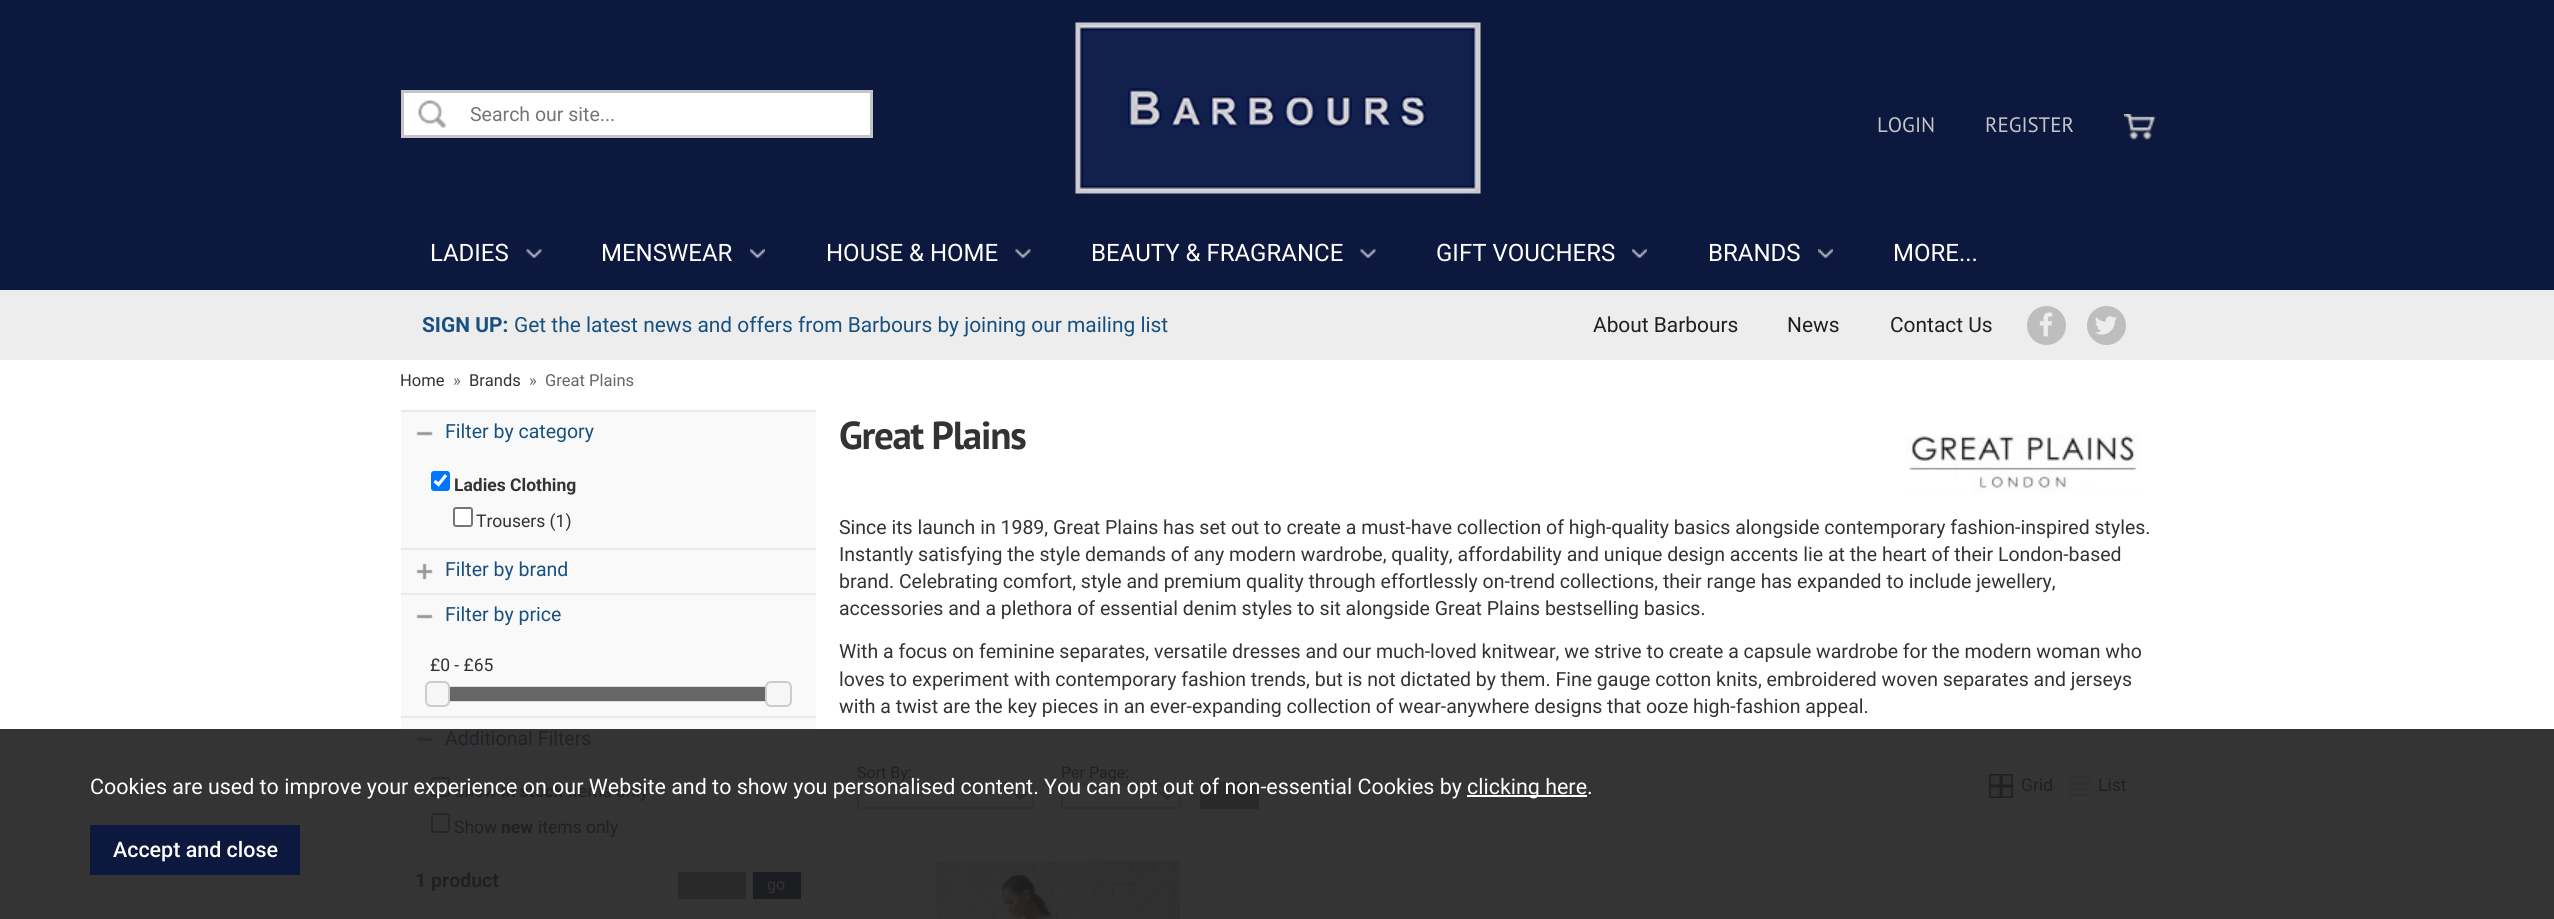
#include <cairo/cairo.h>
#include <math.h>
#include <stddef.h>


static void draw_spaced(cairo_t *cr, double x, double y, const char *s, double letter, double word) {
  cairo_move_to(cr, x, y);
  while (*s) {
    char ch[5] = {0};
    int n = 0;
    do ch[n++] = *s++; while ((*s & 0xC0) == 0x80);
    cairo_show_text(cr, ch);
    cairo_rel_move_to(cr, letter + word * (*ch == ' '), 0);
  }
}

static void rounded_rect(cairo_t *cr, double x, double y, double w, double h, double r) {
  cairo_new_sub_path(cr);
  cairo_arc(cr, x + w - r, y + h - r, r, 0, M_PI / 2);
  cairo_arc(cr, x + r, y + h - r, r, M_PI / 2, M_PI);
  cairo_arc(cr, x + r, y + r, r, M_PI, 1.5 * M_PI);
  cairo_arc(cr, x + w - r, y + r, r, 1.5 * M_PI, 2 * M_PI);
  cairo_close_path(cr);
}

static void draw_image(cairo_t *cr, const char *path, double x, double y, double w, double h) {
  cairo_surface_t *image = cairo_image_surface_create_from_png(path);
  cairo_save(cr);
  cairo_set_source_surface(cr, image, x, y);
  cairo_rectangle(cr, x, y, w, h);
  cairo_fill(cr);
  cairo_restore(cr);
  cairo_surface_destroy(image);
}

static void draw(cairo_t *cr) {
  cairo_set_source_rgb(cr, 1, 1, 1);
  cairo_paint(cr);
  cairo_set_source_rgb(cr, 52 / 255.0, 52 / 255.0, 52 / 255.0);
  cairo_rectangle(cr, 0, 729, 2554, 190);
  cairo_fill(cr);
  cairo_set_source_rgb(cr, 13 / 255.0, 24 / 255.0, 62 / 255.0);
  cairo_rectangle(cr, 0, 0, 2554, 290);
  cairo_fill(cr);
  cairo_rectangle(cr, 402.5, 91.5, 469, 45);
  cairo_set_source_rgb(cr, 196 / 255.0, 197 / 255.0, 198 / 255.0);
  cairo_set_line_width(cr, 3);
  cairo_stroke(cr);
  cairo_set_source_rgb(cr, 1, 1, 1);
  cairo_rectangle(cr, 404, 93, 466, 42);
  cairo_fill(cr);
  draw_image(cr, "images/1.png", 418, 100, 28, 28);
  draw_image(cr, "images/2.png", 1075, 22, 406, 172);
  draw_image(cr, "images/3.png", 2124, 114, 32, 26);
  draw_image(cr, "images/4.png", 526, 249, 16, 9);
  draw_image(cr, "images/5.png", 750, 249, 15, 9);
  draw_image(cr, "images/6.png", 1015, 249, 16, 9);
  draw_image(cr, "images/4.png", 1360, 249, 16, 9);
  draw_image(cr, "images/7.png", 1632, 249, 15, 9);
  draw_image(cr, "images/5.png", 1818, 249, 15, 9);
  cairo_set_source_rgb(cr, 237 / 255.0, 237 / 255.0, 237 / 255.0);
  cairo_rectangle(cr, 0, 290, 2554, 70);
  cairo_fill(cr);
  cairo_set_source_rgb(cr, 190 / 255.0, 190 / 255.0, 190 / 255.0);
  cairo_arc(cr, 2046.5, 325.5, 19.5, 0, 2 * M_PI);
  cairo_fill(cr);
  draw_image(cr, "images/8.png", 2039, 312, 14, 25);
  cairo_arc(cr, 2106.5, 325.5, 19.5, 0, 2 * M_PI);
  cairo_fill(cr);
  draw_image(cr, "images/9.png", 2095, 316, 22, 19);
  cairo_set_source_rgb(cr, 249 / 255.0, 249 / 255.0, 249 / 255.0);
  cairo_rectangle(cr, 401, 412, 415, 317);
  cairo_fill(cr);
  draw_image(cr, "images/10.png", 416, 431, 17, 5);
  cairo_set_source_rgb(cr, 233 / 255.0, 233 / 255.0, 233 / 255.0);
  cairo_rectangle(cr, 401, 410, 415, 2);
  cairo_fill(cr);
  cairo_set_source_rgb(cr, 0, 117 / 255.0, 1);
  rounded_rect(cr, 431, 471, 19, 20, 3);
  cairo_fill(cr);
  cairo_new_path(cr);
  cairo_move_to(cr, 434.5, 481);
  cairo_line_to(cr, 438.5, 484.5);
  cairo_line_to(cr, 446, 475);
  cairo_set_source_rgb(cr, 1, 1, 1);
  cairo_set_line_width(cr, 3.1);
  cairo_stroke(cr);
  rounded_rect(cr, 454, 508, 18, 18, 2);
  cairo_fill_preserve(cr);
  cairo_set_source_rgb(cr, 118 / 255.0, 118 / 255.0, 118 / 255.0);
  cairo_set_line_width(cr, 2);
  cairo_stroke(cr);
  draw_image(cr, "images/11.png", 416, 563, 17, 17);
  cairo_set_source_rgb(cr, 233 / 255.0, 233 / 255.0, 233 / 255.0);
  cairo_rectangle(cr, 401, 548, 415, 2);
  cairo_fill(cr);
  draw_image(cr, "images/10.png", 416, 614, 17, 5);
  cairo_rectangle(cr, 401, 593, 415, 2);
  cairo_fill(cr);
  cairo_rectangle(cr, 438, 687, 341, 14);
  cairo_set_source_rgb(cr, 221 / 255.0, 221 / 255.0, 221 / 255.0);
  cairo_stroke(cr);
  cairo_set_source_rgb(cr, 246 / 255.0, 246 / 255.0, 246 / 255.0);
  rounded_rect(cr, 426, 682, 23, 24, 5);
  cairo_fill_preserve(cr);
  cairo_set_source_rgb(cr, 204 / 255.0, 204 / 255.0, 204 / 255.0);
  cairo_stroke(cr);
  cairo_set_source_rgb(cr, 102 / 255.0, 102 / 255.0, 102 / 255.0);
  cairo_rectangle(cr, 450, 687, 315, 14);
  cairo_fill(cr);
  cairo_set_source_rgb(cr, 246 / 255.0, 246 / 255.0, 246 / 255.0);
  rounded_rect(cr, 766, 682, 25, 24, 5);
  cairo_fill_preserve(cr);
  cairo_set_source_rgb(cr, 204 / 255.0, 204 / 255.0, 204 / 255.0);
  cairo_stroke(cr);
  draw_image(cr, "images/12.png", 416, 737, 17, 5);
  cairo_set_source_rgb(cr, 233 / 255.0, 233 / 255.0, 233 / 255.0);
  cairo_rectangle(cr, 401, 716, 415, 2);
  cairo_fill(cr);
  rounded_rect(cr, 432, 778, 17, 18, 2);
  cairo_set_source_rgb(cr, 39 / 255.0, 39 / 255.0, 39 / 255.0);
  cairo_stroke(cr);
  rounded_rect(cr, 432, 814, 17, 18, 2);
  cairo_stroke(cr);
  cairo_set_source_rgb(cr, 41 / 255.0, 41 / 255.0, 41 / 255.0);
  cairo_rectangle(cr, 678, 872, 68, 27);
  cairo_fill(cr);
  cairo_set_source_rgb(cr, 28 / 255.0, 29 / 255.0, 33 / 255.0);
  cairo_rectangle(cr, 753, 872, 48, 27);
  cairo_fill(cr);
  draw_image(cr, "images/13.png", 1905, 434, 235, 59);
  draw_image(cr, "images/14.png", 856, 784, 178, 16);
  rounded_rect(cr, 858, 784, 175, 24, 2);
  cairo_set_source_rgb(cr, 47 / 255.0, 47 / 255.0, 47 / 255.0);
  cairo_stroke(cr);
  cairo_new_path(cr);
  cairo_move_to(cr, 1014.5, 792.5);
  cairo_line_to(cr, 1020.5, 798.5);
  cairo_line_to(cr, 1026.5, 792.5);
  cairo_set_source_rgb(cr, 42 / 255.0, 42 / 255.0, 42 / 255.0);
  cairo_set_line_width(cr, 3);
  cairo_stroke(cr);
  draw_image(cr, "images/15.png", 1060, 784, 121, 16);
  rounded_rect(cr, 1062, 784, 118, 24, 2);
  cairo_set_source_rgb(cr, 47 / 255.0, 47 / 255.0, 47 / 255.0);
  cairo_set_line_width(cr, 2);
  cairo_stroke(cr);
  cairo_new_path(cr);
  cairo_move_to(cr, 1161, 792.5);
  cairo_line_to(cr, 1167, 798.5);
  cairo_line_to(cr, 1173, 792.5);
  cairo_set_source_rgb(cr, 42 / 255.0, 42 / 255.0, 42 / 255.0);
  cairo_set_line_width(cr, 3);
  cairo_stroke(cr);
  cairo_set_source_rgb(cr, 41 / 255.0, 41 / 255.0, 41 / 255.0);
  cairo_rectangle(cr, 1200, 782, 59, 27);
  cairo_fill(cr);
  cairo_set_source_rgb(cr, 32 / 255.0, 32 / 255.0, 32 / 255.0);
  cairo_rectangle(cr, 1989, 774, 24, 24);
  cairo_fill(cr);
  draw_image(cr, "images/16.png", 1990, 775, 22, 22);
  draw_image(cr, "images/17.png", 2068, 775, 22, 22);
  draw_image(cr, "images/18.png", 933, 861, 247, 58);
  cairo_set_source_rgb(cr, 1, 1, 1);
  cairo_rectangle(cr, 1467, 795, 120, 2);
  cairo_fill(cr);
  cairo_set_source_rgb(cr, 13 / 255.0, 24 / 255.0, 62 / 255.0);
  cairo_rectangle(cr, 90, 825, 210, 50);
  cairo_fill(cr);
  cairo_select_font_face(cr, "Roboto", CAIRO_FONT_SLANT_NORMAL, CAIRO_FONT_WEIGHT_NORMAL);
  cairo_set_font_size(cr, 19.5);
  cairo_set_source_rgb(cr, 117 / 255.0, 117 / 255.0, 117 / 255.0);
  cairo_move_to(cr, 470, 121);
  cairo_show_text(cr, "Search our site...");
  cairo_select_font_face(cr, "PT Sans", CAIRO_FONT_SLANT_NORMAL, CAIRO_FONT_WEIGHT_NORMAL);
  cairo_set_font_size(cr, 20.9);
  cairo_set_source_rgb(cr, 196 / 255.0, 197 / 255.0, 198 / 255.0);
  cairo_move_to(cr, 1877, 132);
  cairo_show_text(cr, "LOGIN");
  cairo_move_to(cr, 1985, 132);
  cairo_show_text(cr, "REGISTER");
  cairo_select_font_face(cr, "Roboto", CAIRO_FONT_SLANT_NORMAL, CAIRO_FONT_WEIGHT_NORMAL);
  cairo_set_font_size(cr, 24);
  cairo_set_source_rgb(cr, 1, 1, 1);
  cairo_move_to(cr, 430, 261);
  cairo_show_text(cr, "LADIES");
  cairo_move_to(cr, 601, 261);
  cairo_show_text(cr, "MENSWEAR");
  cairo_move_to(cr, 826, 261);
  cairo_show_text(cr, "HOUSE & HOME");
  cairo_move_to(cr, 1091, 261);
  cairo_show_text(cr, "BEAUTY & FRAGRANCE");
  cairo_move_to(cr, 1436, 261);
  cairo_show_text(cr, "GIFT VOUCHERS");
  cairo_move_to(cr, 1708, 261);
  cairo_show_text(cr, "BRANDS");
  cairo_move_to(cr, 1893, 261);
  cairo_show_text(cr, "MORE...");
  cairo_select_font_face(cr, "Roboto", CAIRO_FONT_SLANT_NORMAL, CAIRO_FONT_WEIGHT_BOLD);
  cairo_set_font_size(cr, 20.9);
  cairo_set_source_rgb(cr, 24 / 255.0, 80 / 255.0, 128 / 255.0);
  cairo_move_to(cr, 422, 332);
  cairo_show_text(cr, "SIGN UP:");
  cairo_select_font_face(cr, "Roboto", CAIRO_FONT_SLANT_NORMAL, CAIRO_FONT_WEIGHT_NORMAL);
  cairo_move_to(cr, 514, 332);
  cairo_show_text(cr, "Get the latest news and offers from Barbours by joining our mailing list");
  cairo_set_source_rgb(cr, 35 / 255.0, 31 / 255.0, 32 / 255.0);
  cairo_move_to(cr, 1593, 332);
  cairo_show_text(cr, "About Barbours");
  cairo_move_to(cr, 1787, 332);
  cairo_show_text(cr, "News");
  cairo_move_to(cr, 1890, 332);
  cairo_show_text(cr, "Contact Us");
  cairo_set_font_size(cr, 16.5);
  cairo_set_source_rgb(cr, 51 / 255.0, 51 / 255.0, 51 / 255.0);
  cairo_move_to(cr, 400, 386);
  cairo_show_text(cr, "Home");
  cairo_set_source_rgb(cr, 102 / 255.0, 102 / 255.0, 102 / 255.0);
  cairo_move_to(cr, 453, 386);
  cairo_show_text(cr, "»");
  cairo_set_source_rgb(cr, 51 / 255.0, 51 / 255.0, 51 / 255.0);
  cairo_move_to(cr, 469, 386);
  cairo_show_text(cr, "Brands");
  cairo_set_source_rgb(cr, 102 / 255.0, 102 / 255.0, 102 / 255.0);
  cairo_move_to(cr, 529, 386);
  cairo_show_text(cr, "»");
  cairo_move_to(cr, 545, 386);
  cairo_show_text(cr, "Great Plains");
  cairo_set_font_size(cr, 19.5);
  cairo_set_source_rgb(cr, 24 / 255.0, 80 / 255.0, 128 / 255.0);
  cairo_move_to(cr, 445, 438);
  cairo_show_text(cr, "Filter by category");
  cairo_select_font_face(cr, "Roboto", CAIRO_FONT_SLANT_NORMAL, CAIRO_FONT_WEIGHT_BOLD);
  cairo_set_font_size(cr, 17.5);
  cairo_set_source_rgb(cr, 51 / 255.0, 51 / 255.0, 51 / 255.0);
  cairo_move_to(cr, 454, 491);
  cairo_show_text(cr, "Ladies Clothing");
  cairo_select_font_face(cr, "Roboto", CAIRO_FONT_SLANT_NORMAL, CAIRO_FONT_WEIGHT_NORMAL);
  cairo_move_to(cr, 476, 527);
  cairo_show_text(cr, "Trousers (1)");
  cairo_set_font_size(cr, 19.5);
  cairo_set_source_rgb(cr, 24 / 255.0, 80 / 255.0, 128 / 255.0);
  cairo_move_to(cr, 445, 576);
  cairo_show_text(cr, "Filter by brand");
  cairo_move_to(cr, 445, 621);
  cairo_show_text(cr, "Filter by price");
  cairo_set_font_size(cr, 17.5);
  cairo_set_source_rgb(cr, 51 / 255.0, 51 / 255.0, 51 / 255.0);
  cairo_move_to(cr, 430, 671);
  cairo_show_text(cr, "£0 - £65");
  cairo_set_font_size(cr, 19.5);
  cairo_set_source_rgb(cr, 29 / 255.0, 35 / 255.0, 40 / 255.0);
  cairo_move_to(cr, 445, 745);
  cairo_show_text(cr, "Additional Filters");
  cairo_set_font_size(cr, 17.5);
  cairo_set_source_rgb(cr, 35 / 255.0, 31 / 255.0, 32 / 255.0);
  cairo_move_to(cr, 454, 797);
  cairo_show_text(cr, "Show");
  cairo_select_font_face(cr, "Roboto", CAIRO_FONT_SLANT_NORMAL, CAIRO_FONT_WEIGHT_BOLD);
  cairo_move_to(cr, 501, 797);
  cairo_show_text(cr, "in stock");
  cairo_select_font_face(cr, "Roboto", CAIRO_FONT_SLANT_NORMAL, CAIRO_FONT_WEIGHT_NORMAL);
  cairo_move_to(cr, 568, 797);
  cairo_show_text(cr, "items only");
  cairo_move_to(cr, 454, 833);
  cairo_show_text(cr, "Show");
  cairo_select_font_face(cr, "Roboto", CAIRO_FONT_SLANT_NORMAL, CAIRO_FONT_WEIGHT_BOLD);
  cairo_move_to(cr, 501, 833);
  cairo_show_text(cr, "new");
  cairo_select_font_face(cr, "Roboto", CAIRO_FONT_SLANT_NORMAL, CAIRO_FONT_WEIGHT_NORMAL);
  cairo_move_to(cr, 538, 833);
  cairo_show_text(cr, "items only");
  cairo_select_font_face(cr, "Roboto", CAIRO_FONT_SLANT_NORMAL, CAIRO_FONT_WEIGHT_BOLD);
  cairo_set_font_size(cr, 19.5);
  cairo_move_to(cr, 415, 887);
  cairo_show_text(cr, "1 product");
  cairo_select_font_face(cr, "Roboto", CAIRO_FONT_SLANT_NORMAL, CAIRO_FONT_WEIGHT_NORMAL);
  cairo_set_font_size(cr, 16);
  cairo_set_source_rgb(cr, 51 / 255.0, 51 / 255.0, 51 / 255.0);
  cairo_move_to(cr, 767, 890);
  cairo_show_text(cr, "go");
  cairo_select_font_face(cr, "PT Sans", CAIRO_FONT_SLANT_NORMAL, CAIRO_FONT_WEIGHT_BOLD);
  cairo_set_font_size(cr, 39);
  draw_spaced(cr, 839, 449, "Great Plains", -1.25, 0);
  cairo_select_font_face(cr, "Roboto", CAIRO_FONT_SLANT_NORMAL, CAIRO_FONT_WEIGHT_NORMAL);
  cairo_set_font_size(cr, 19.5);
  cairo_move_to(cr, 839, 534);
  cairo_show_text(cr, "Since its launch in 1989, Great Plains has set out to create a must-have collection of high-quality basics alongside contemporary fashion-inspired styles.");
  cairo_move_to(cr, 839, 561);
  cairo_show_text(cr, "Instantly satisfying the style demands of any modern wardrobe, quality, affordability and unique design accents lie at the heart of their London-based");
  cairo_move_to(cr, 839, 588);
  cairo_show_text(cr, "brand. Celebrating comfort, style and premium quality through effortlessly on-trend collections, their range has expanded to include jewellery,");
  cairo_move_to(cr, 839, 615);
  cairo_show_text(cr, "accessories and a plethora of essential denim styles to sit alongside Great Plains bestselling basics.");
  cairo_move_to(cr, 839, 658);
  cairo_show_text(cr, "With a focus on feminine separates, versatile dresses and our much-loved knitwear, we strive to create a capsule wardrobe for the modern woman who");
  cairo_move_to(cr, 839, 686);
  cairo_show_text(cr, "loves to experiment with contemporary fashion trends, but is not dictated by them. Fine gauge cotton knits, embroidered woven separates and jerseys");
  cairo_move_to(cr, 839, 713);
  cairo_show_text(cr, "with a twist are the key pieces in an ever-expanding collection of wear-anywhere designs that ooze high-fashion appeal.");
  cairo_set_font_size(cr, 16);
  cairo_set_source_rgb(cr, 35 / 255.0, 31 / 255.0, 32 / 255.0);
  cairo_move_to(cr, 857, 778);
  cairo_show_text(cr, "Sort By:");
  cairo_move_to(cr, 1061, 778);
  cairo_show_text(cr, "Per Page:");
  cairo_set_font_size(cr, 17.5);
  cairo_move_to(cr, 2021, 791);
  cairo_show_text(cr, "Grid");
  cairo_move_to(cr, 2098, 791);
  cairo_show_text(cr, "List");
  cairo_set_font_size(cr, 21.45);
  cairo_set_source_rgb(cr, 1, 1, 1);
  cairo_move_to(cr, 90, 794);
  cairo_show_text(cr, "Cookies are used to improve your experience on our Website and to show you personalised content. You can opt out of non-essential Cookies by");
  cairo_move_to(cr, 1467, 794);
  cairo_show_text(cr, "clicking here.");
  cairo_select_font_face(cr, "Roboto Medium", CAIRO_FONT_SLANT_NORMAL, CAIRO_FONT_WEIGHT_NORMAL);
  cairo_move_to(cr, 113, 857);
  cairo_show_text(cr, "Accept and close");
}

int main(void) {
  cairo_surface_t *surface = cairo_image_surface_create(CAIRO_FORMAT_RGB24, 2554, 919);
  cairo_t *cr = cairo_create(surface);
  cairo_font_options_t *options = cairo_font_options_create();
  cairo_font_options_set_hint_metrics(options, CAIRO_HINT_METRICS_OFF);
  cairo_font_options_set_hint_style(options, CAIRO_HINT_STYLE_NONE);
  cairo_set_font_options(cr, options);
  cairo_set_miter_limit(cr, 4);
  draw(cr);
  cairo_surface_write_to_png(surface, "out.png");
  cairo_font_options_destroy(options);
  cairo_destroy(cr);
  cairo_surface_destroy(surface);
  return 0;
}
